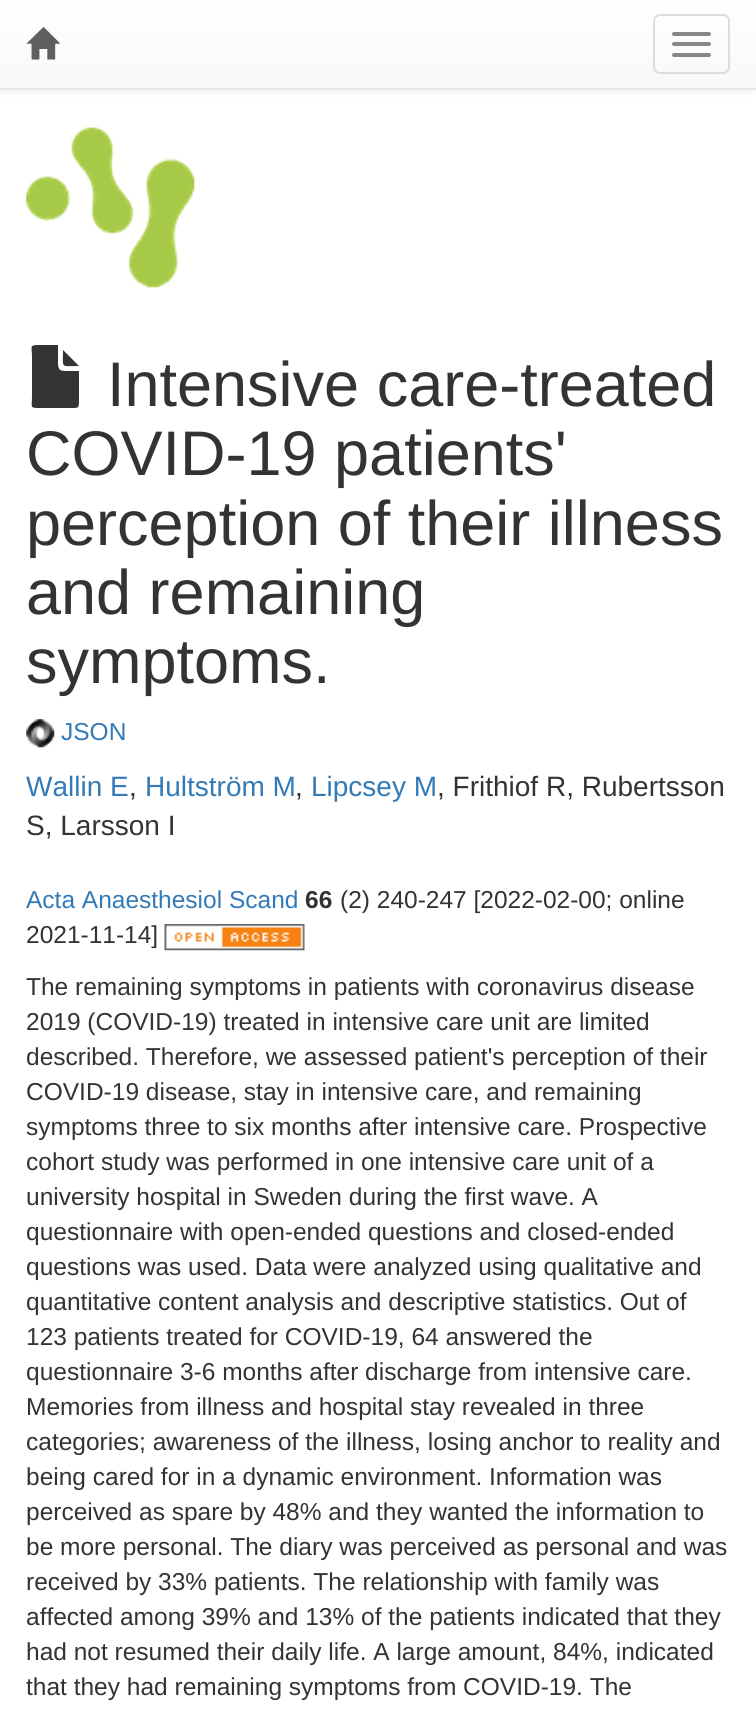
#include <cairo/cairo.h>
#include <math.h>
#include <stddef.h>


static void rounded_rect(cairo_t *cr, double x, double y, double w, double h, double r) {
  cairo_new_sub_path(cr);
  cairo_arc(cr, x + w - r, y + h - r, r, 0, M_PI / 2);
  cairo_arc(cr, x + r, y + h - r, r, M_PI / 2, M_PI);
  cairo_arc(cr, x + r, y + r, r, M_PI, 1.5 * M_PI);
  cairo_arc(cr, x + w - r, y + r, r, 1.5 * M_PI, 2 * M_PI);
  cairo_close_path(cr);
}

static void draw_shadow(cairo_t *cr, double x, double y, double w, double h, double r, double blur, double alpha) {
  cairo_push_group_with_content(cr, CAIRO_CONTENT_ALPHA);
  cairo_set_operator(cr, CAIRO_OPERATOR_SOURCE);
  for (int i = 15; i >= -15 && fmin(w, h) + blur * i / 3 > 0; i -= 2) {
    double e = blur * i / 6;
    cairo_set_source_rgba(cr, 0, 0, 0, alpha * erfc((i - 1) / 8.5) / 2);
    rounded_rect(cr, x - e, y - e, w + 2 * e, h + 2 * e, fmax(0, fmin(r + e + blur * .6, fmin(w, h) / 2 + e)));
    cairo_fill(cr);
  }
  cairo_pattern_t *soft = cairo_pop_group(cr);
  cairo_mask(cr, soft);
  cairo_pattern_destroy(soft);
}

static void draw_image(cairo_t *cr, const char *path, double x, double y, double w, double h) {
  cairo_surface_t *image = cairo_image_surface_create_from_png(path);
  cairo_save(cr);
  cairo_set_source_surface(cr, image, x, y);
  cairo_rectangle(cr, x, y, w, h);
  cairo_fill(cr);
  cairo_restore(cr);
  cairo_surface_destroy(image);
}

static void draw(cairo_t *cr) {
  cairo_pattern_t *gradient;
  cairo_set_source_rgb(cr, 1, 1, 1);
  cairo_paint(cr);
  cairo_set_source_rgb(cr, 0, 0, 0);
  draw_shadow(cr, 0, 2, 756, 89, 0, 4.5, 0.07);
  gradient = cairo_pattern_create_linear(378, 0, 378, 88);
  cairo_pattern_add_color_stop_rgba(gradient, 0, 1, 1, 1, 1);
  cairo_pattern_add_color_stop_rgba(gradient, 1, 248 / 255.0, 248 / 255.0, 248 / 255.0, 1);
  cairo_set_source(cr, gradient);
  cairo_pattern_destroy(gradient);
  cairo_rectangle(cr, 0, 0, 756, 88);
  cairo_fill(cr);
  cairo_set_source_rgb(cr, 231 / 255.0, 231 / 255.0, 231 / 255.0);
  cairo_rectangle(cr, 0, 88, 756, 2);
  cairo_fill(cr);
  draw_image(cr, "images/1.png", 26, 27, 34, 33);
  rounded_rect(cr, 654, 15, 75, 58, 6);
  cairo_set_source_rgb(cr, 221 / 255.0, 221 / 255.0, 221 / 255.0);
  cairo_stroke(cr);
  cairo_set_source_rgb(cr, 136 / 255.0, 136 / 255.0, 136 / 255.0);
  rounded_rect(cr, 672, 32, 39, 4, 2);
  cairo_fill(cr);
  rounded_rect(cr, 672, 42, 39, 4, 2);
  cairo_fill(cr);
  rounded_rect(cr, 672, 53, 39, 4, 2);
  cairo_fill(cr);
  draw_image(cr, "images/2.png", 26, 127, 169, 161);
  cairo_set_source_rgb(cr, 51 / 255.0, 51 / 255.0, 51 / 255.0);
  cairo_new_path(cr);
  cairo_move_to(cr, 58, 345);
  cairo_line_to(cr, 58, 362);
  cairo_curve_to(cr, 58, 369, 59, 371, 66, 371);
  cairo_line_to(cr, 79, 371);
  cairo_line_to(cr, 79, 399);
  cairo_curve_to(cr, 79, 409, 79, 408, 69, 408);
  cairo_line_to(cr, 41, 408);
  cairo_curve_to(cr, 29, 408, 32, 408, 32, 396);
  cairo_line_to(cr, 32, 357);
  cairo_curve_to(cr, 32, 347, 29, 345, 38, 345);
  cairo_close_path(cr);
  cairo_move_to(cr, 79, 366);
  cairo_curve_to(cr, 60, 366, 63, 369, 63, 350);
  cairo_close_path(cr);
  cairo_fill(cr);
  draw_image(cr, "images/3.png", 26, 719, 29, 29);
  draw_image(cr, "images/4.png", 164, 924, 141, 27);
  cairo_select_font_face(cr, "Liberation Sans", CAIRO_FONT_SLANT_NORMAL, CAIRO_FONT_WEIGHT_NORMAL);
  cairo_set_font_size(cr, 63);
  cairo_move_to(cr, 107, 406);
  cairo_show_text(cr, "Intensive care-treated");
  cairo_move_to(cr, 26, 475);
  cairo_show_text(cr, "COVID-19 patients'");
  cairo_move_to(cr, 26, 545);
  cairo_show_text(cr, "perception of their illness");
  cairo_move_to(cr, 26, 614);
  cairo_show_text(cr, "and remaining");
  cairo_move_to(cr, 26, 683);
  cairo_show_text(cr, "symptoms.");
  cairo_set_font_size(cr, 24.5);
  cairo_set_source_rgb(cr, 51 / 255.0, 122 / 255.0, 183 / 255.0);
  cairo_move_to(cr, 61, 740);
  cairo_show_text(cr, "JSON");
  cairo_set_font_size(cr, 28);
  cairo_move_to(cr, 26, 796);
  cairo_show_text(cr, "Wallin E");
  cairo_set_source_rgb(cr, 51 / 255.0, 51 / 255.0, 51 / 255.0);
  cairo_move_to(cr, 129, 796);
  cairo_show_text(cr, ",");
  cairo_set_source_rgb(cr, 51 / 255.0, 122 / 255.0, 183 / 255.0);
  cairo_move_to(cr, 145, 796);
  cairo_show_text(cr, "Hultström M");
  cairo_set_source_rgb(cr, 51 / 255.0, 51 / 255.0, 51 / 255.0);
  cairo_move_to(cr, 295, 796);
  cairo_show_text(cr, ",");
  cairo_set_source_rgb(cr, 51 / 255.0, 122 / 255.0, 183 / 255.0);
  cairo_move_to(cr, 311, 796);
  cairo_show_text(cr, "Lipcsey M");
  cairo_set_source_rgb(cr, 51 / 255.0, 51 / 255.0, 51 / 255.0);
  cairo_move_to(cr, 437, 796);
  cairo_show_text(cr, ", Frithiof R, Rubertsson");
  cairo_move_to(cr, 26, 835);
  cairo_show_text(cr, "S, Larsson I");
  cairo_set_font_size(cr, 24.5);
  cairo_set_source_rgb(cr, 51 / 255.0, 122 / 255.0, 183 / 255.0);
  cairo_move_to(cr, 26, 908);
  cairo_show_text(cr, "Acta Anaesthesiol Scand");
  cairo_select_font_face(cr, "Liberation Sans", CAIRO_FONT_SLANT_NORMAL, CAIRO_FONT_WEIGHT_BOLD);
  cairo_set_source_rgb(cr, 51 / 255.0, 51 / 255.0, 51 / 255.0);
  cairo_move_to(cr, 305, 908);
  cairo_show_text(cr, "66");
  cairo_select_font_face(cr, "Liberation Sans", CAIRO_FONT_SLANT_NORMAL, CAIRO_FONT_WEIGHT_NORMAL);
  cairo_move_to(cr, 340, 908);
  cairo_show_text(cr, "(2) 240-247 [2022-02-00; online");
  cairo_move_to(cr, 26, 943);
  cairo_show_text(cr, "2021-11-14]");
  cairo_move_to(cr, 26, 995);
  cairo_show_text(cr, "The remaining symptoms in patients with coronavirus disease");
  cairo_move_to(cr, 26, 1030);
  cairo_show_text(cr, "2019 (COVID-19) treated in intensive care unit are limited");
  cairo_move_to(cr, 26, 1065);
  cairo_show_text(cr, "described. Therefore, we assessed patient's perception of their");
  cairo_move_to(cr, 26, 1100);
  cairo_show_text(cr, "COVID-19 disease, stay in intensive care, and remaining");
  cairo_move_to(cr, 26, 1135);
  cairo_show_text(cr, "symptoms three to six months after intensive care. Prospective");
  cairo_move_to(cr, 26, 1170);
  cairo_show_text(cr, "cohort study was performed in one intensive care unit of a");
  cairo_move_to(cr, 26, 1205);
  cairo_show_text(cr, "university hospital in Sweden during the first wave. A");
  cairo_move_to(cr, 26, 1240);
  cairo_show_text(cr, "questionnaire with open-ended questions and closed-ended");
  cairo_move_to(cr, 26, 1275);
  cairo_show_text(cr, "questions was used. Data were analyzed using qualitative and");
  cairo_move_to(cr, 26, 1310);
  cairo_show_text(cr, "quantitative content analysis and descriptive statistics. Out of");
  cairo_move_to(cr, 26, 1345);
  cairo_show_text(cr, "123 patients treated for COVID-19, 64 answered the");
  cairo_move_to(cr, 26, 1380);
  cairo_show_text(cr, "questionnaire 3-6 months after discharge from intensive care.");
  cairo_move_to(cr, 26, 1415);
  cairo_show_text(cr, "Memories from illness and hospital stay revealed in three");
  cairo_move_to(cr, 26, 1450);
  cairo_show_text(cr, "categories; awareness of the illness, losing anchor to reality and");
  cairo_move_to(cr, 26, 1485);
  cairo_show_text(cr, "being cared for in a dynamic environment. Information was");
  cairo_move_to(cr, 26, 1520);
  cairo_show_text(cr, "perceived as spare by 48% and they wanted the information to");
  cairo_move_to(cr, 26, 1555);
  cairo_show_text(cr, "be more personal. The diary was perceived as personal and was");
  cairo_move_to(cr, 26, 1590);
  cairo_show_text(cr, "received by 33% patients. The relationship with family was");
  cairo_move_to(cr, 26, 1625);
  cairo_show_text(cr, "affected among 39% and 13% of the patients indicated that they");
  cairo_move_to(cr, 26, 1660);
  cairo_show_text(cr, "had not resumed their daily life. A large amount, 84%, indicated");
  cairo_move_to(cr, 26, 1695);
  cairo_show_text(cr, "that they had remaining symptoms from COVID-19. The");
}

int main(void) {
  cairo_surface_t *surface = cairo_image_surface_create(CAIRO_FORMAT_RGB24, 756, 1719);
  cairo_t *cr = cairo_create(surface);
  cairo_font_options_t *options = cairo_font_options_create();
  cairo_font_options_set_hint_metrics(options, CAIRO_HINT_METRICS_OFF);
  cairo_font_options_set_hint_style(options, CAIRO_HINT_STYLE_NONE);
  cairo_set_font_options(cr, options);
  cairo_set_miter_limit(cr, 4);
  draw(cr);
  cairo_surface_write_to_png(surface, "out.png");
  cairo_font_options_destroy(options);
  cairo_destroy(cr);
  cairo_surface_destroy(surface);
  return 0;
}
